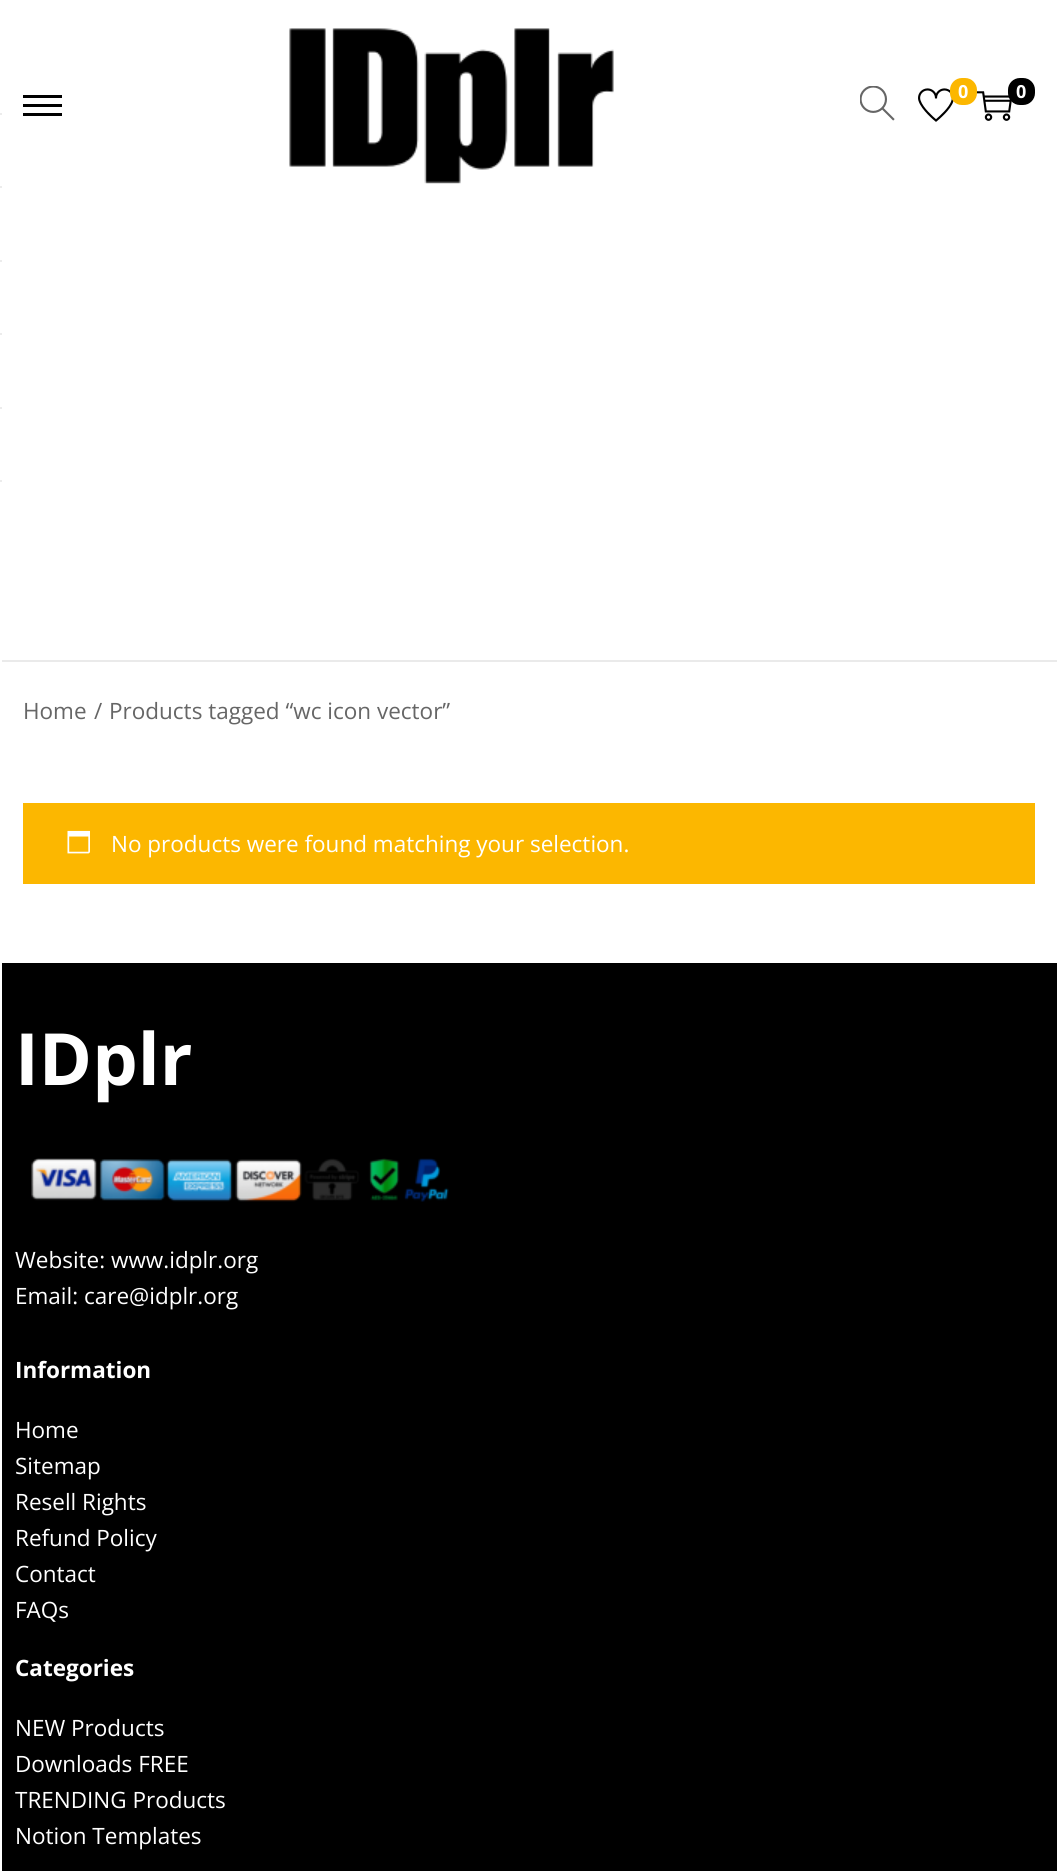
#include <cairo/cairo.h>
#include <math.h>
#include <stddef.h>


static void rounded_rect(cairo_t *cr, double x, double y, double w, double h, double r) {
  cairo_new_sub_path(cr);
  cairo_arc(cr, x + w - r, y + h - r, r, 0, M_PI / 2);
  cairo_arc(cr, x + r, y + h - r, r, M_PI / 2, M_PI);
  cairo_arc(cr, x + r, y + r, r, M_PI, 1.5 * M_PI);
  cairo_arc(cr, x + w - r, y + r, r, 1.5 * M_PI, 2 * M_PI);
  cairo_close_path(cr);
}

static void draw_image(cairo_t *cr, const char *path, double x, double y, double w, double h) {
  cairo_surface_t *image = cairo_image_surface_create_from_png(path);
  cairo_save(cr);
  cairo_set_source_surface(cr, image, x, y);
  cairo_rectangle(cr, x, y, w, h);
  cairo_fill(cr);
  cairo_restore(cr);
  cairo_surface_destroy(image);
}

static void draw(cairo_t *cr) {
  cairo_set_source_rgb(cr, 1, 1, 1);
  cairo_paint(cr);
  cairo_set_source_rgb(cr, 234 / 255.0, 234 / 255.0, 234 / 255.0);
  cairo_rectangle(cr, 0, 660, 1057, 2);
  cairo_fill(cr);
  draw_image(cr, "images/1.png", 289, 28, 325, 156);
  draw_image(cr, "images/2.png", 860, 86, 35, 35);
  draw_image(cr, "images/3.png", 918, 88, 36, 34);
  cairo_set_source_rgb(cr, 252 / 255.0, 183 / 255.0, 0);
  rounded_rect(cr, 950, 78, 27, 27, 12);
  cairo_fill(cr);
  draw_image(cr, "images/4.png", 977, 91, 35, 30);
  cairo_set_source_rgb(cr, 0, 0, 0);
  rounded_rect(cr, 1008, 78, 27, 27, 12);
  cairo_fill(cr);
  cairo_rectangle(cr, 23, 104, 39, 3);
  cairo_fill(cr);
  cairo_rectangle(cr, 23, 95, 39, 3);
  cairo_fill(cr);
  cairo_rectangle(cr, 23, 113, 39, 3);
  cairo_fill(cr);
  cairo_set_source_rgb(cr, 1, 1, 1);
  cairo_rectangle(cr, 0, 660, 2, 2);
  cairo_fill(cr);
  cairo_set_source_rgb(cr, 236 / 255.0, 236 / 255.0, 236 / 255.0);
  cairo_rectangle(cr, 0, 113, 2, 2);
  cairo_fill(cr);
  cairo_rectangle(cr, 0, 186, 2, 2);
  cairo_fill(cr);
  cairo_rectangle(cr, 0, 260, 2, 2);
  cairo_fill(cr);
  cairo_rectangle(cr, 0, 333, 2, 2);
  cairo_fill(cr);
  cairo_rectangle(cr, 0, 407, 2, 2);
  cairo_fill(cr);
  cairo_rectangle(cr, 0, 480, 2, 2);
  cairo_fill(cr);
  cairo_set_source_rgb(cr, 252 / 255.0, 183 / 255.0, 0);
  cairo_rectangle(cr, 23, 803, 1012, 81);
  cairo_fill(cr);
  draw_image(cr, "images/5.png", 67, 830, 23, 24);
  cairo_set_source_rgb(cr, 0, 0, 0);
  cairo_rectangle(cr, 2, 963, 1055, 908);
  cairo_fill(cr);
  draw_image(cr, "images/6.png", 31, 1158, 418, 44);
  cairo_select_font_face(cr, "Open Sans", CAIRO_FONT_SLANT_NORMAL, CAIRO_FONT_WEIGHT_BOLD);
  cairo_set_font_size(cr, 18);
  cairo_set_source_rgb(cr, 1, 1, 1);
  cairo_move_to(cr, 958, 98);
  cairo_show_text(cr, "0");
  cairo_move_to(cr, 1016, 98);
  cairo_show_text(cr, "0");
  cairo_select_font_face(cr, "Open Sans", CAIRO_FONT_SLANT_NORMAL, CAIRO_FONT_WEIGHT_NORMAL);
  cairo_set_font_size(cr, 22.5);
  cairo_set_source_rgb(cr, 102 / 255.0, 102 / 255.0, 102 / 255.0);
  cairo_move_to(cr, 23, 719);
  cairo_show_text(cr, "Home");
  cairo_move_to(cr, 94, 719);
  cairo_show_text(cr, "/");
  cairo_move_to(cr, 109, 719);
  cairo_show_text(cr, "Products tagged “wc icon vector”");
  cairo_set_source_rgb(cr, 1, 1, 1);
  cairo_move_to(cr, 111, 852);
  cairo_show_text(cr, "No products were found matching your selection.");
  cairo_select_font_face(cr, "Open Sans", CAIRO_FONT_SLANT_NORMAL, CAIRO_FONT_WEIGHT_BOLD);
  cairo_set_font_size(cr, 72);
  cairo_move_to(cr, 15, 1085);
  cairo_show_text(cr, "IDplr");
  cairo_select_font_face(cr, "Open Sans", CAIRO_FONT_SLANT_NORMAL, CAIRO_FONT_WEIGHT_NORMAL);
  cairo_set_font_size(cr, 22.5);
  cairo_move_to(cr, 15, 1268);
  cairo_show_text(cr, "Website: www.idplr.org");
  cairo_move_to(cr, 15, 1304);
  cairo_show_text(cr, "Email: care@idplr.org");
  cairo_select_font_face(cr, "Open Sans", CAIRO_FONT_SLANT_NORMAL, CAIRO_FONT_WEIGHT_BOLD);
  cairo_move_to(cr, 15, 1378);
  cairo_show_text(cr, "Information");
  cairo_select_font_face(cr, "Open Sans", CAIRO_FONT_SLANT_NORMAL, CAIRO_FONT_WEIGHT_NORMAL);
  cairo_move_to(cr, 15, 1438);
  cairo_show_text(cr, "Home");
  cairo_move_to(cr, 15, 1474);
  cairo_show_text(cr, "Sitemap");
  cairo_move_to(cr, 15, 1510);
  cairo_show_text(cr, "Resell Rights");
  cairo_move_to(cr, 15, 1546);
  cairo_show_text(cr, "Refund Policy");
  cairo_move_to(cr, 15, 1582);
  cairo_show_text(cr, "Contact");
  cairo_move_to(cr, 15, 1618);
  cairo_show_text(cr, "FAQs");
  cairo_select_font_face(cr, "Open Sans", CAIRO_FONT_SLANT_NORMAL, CAIRO_FONT_WEIGHT_BOLD);
  cairo_move_to(cr, 15, 1676);
  cairo_show_text(cr, "Categories");
  cairo_select_font_face(cr, "Open Sans", CAIRO_FONT_SLANT_NORMAL, CAIRO_FONT_WEIGHT_NORMAL);
  cairo_move_to(cr, 15, 1736);
  cairo_show_text(cr, "NEW Products");
  cairo_move_to(cr, 15, 1772);
  cairo_show_text(cr, "Downloads FREE");
  cairo_move_to(cr, 15, 1808);
  cairo_show_text(cr, "TRENDING Products");
  cairo_move_to(cr, 15, 1844);
  cairo_show_text(cr, "Notion Templates");
}

int main(void) {
  cairo_surface_t *surface = cairo_image_surface_create(CAIRO_FORMAT_RGB24, 1057, 1871);
  cairo_t *cr = cairo_create(surface);
  cairo_font_options_t *options = cairo_font_options_create();
  cairo_font_options_set_hint_metrics(options, CAIRO_HINT_METRICS_OFF);
  cairo_font_options_set_hint_style(options, CAIRO_HINT_STYLE_NONE);
  cairo_set_font_options(cr, options);
  cairo_set_miter_limit(cr, 4);
  draw(cr);
  cairo_surface_write_to_png(surface, "out.png");
  cairo_font_options_destroy(options);
  cairo_destroy(cr);
  cairo_surface_destroy(surface);
  return 0;
}
